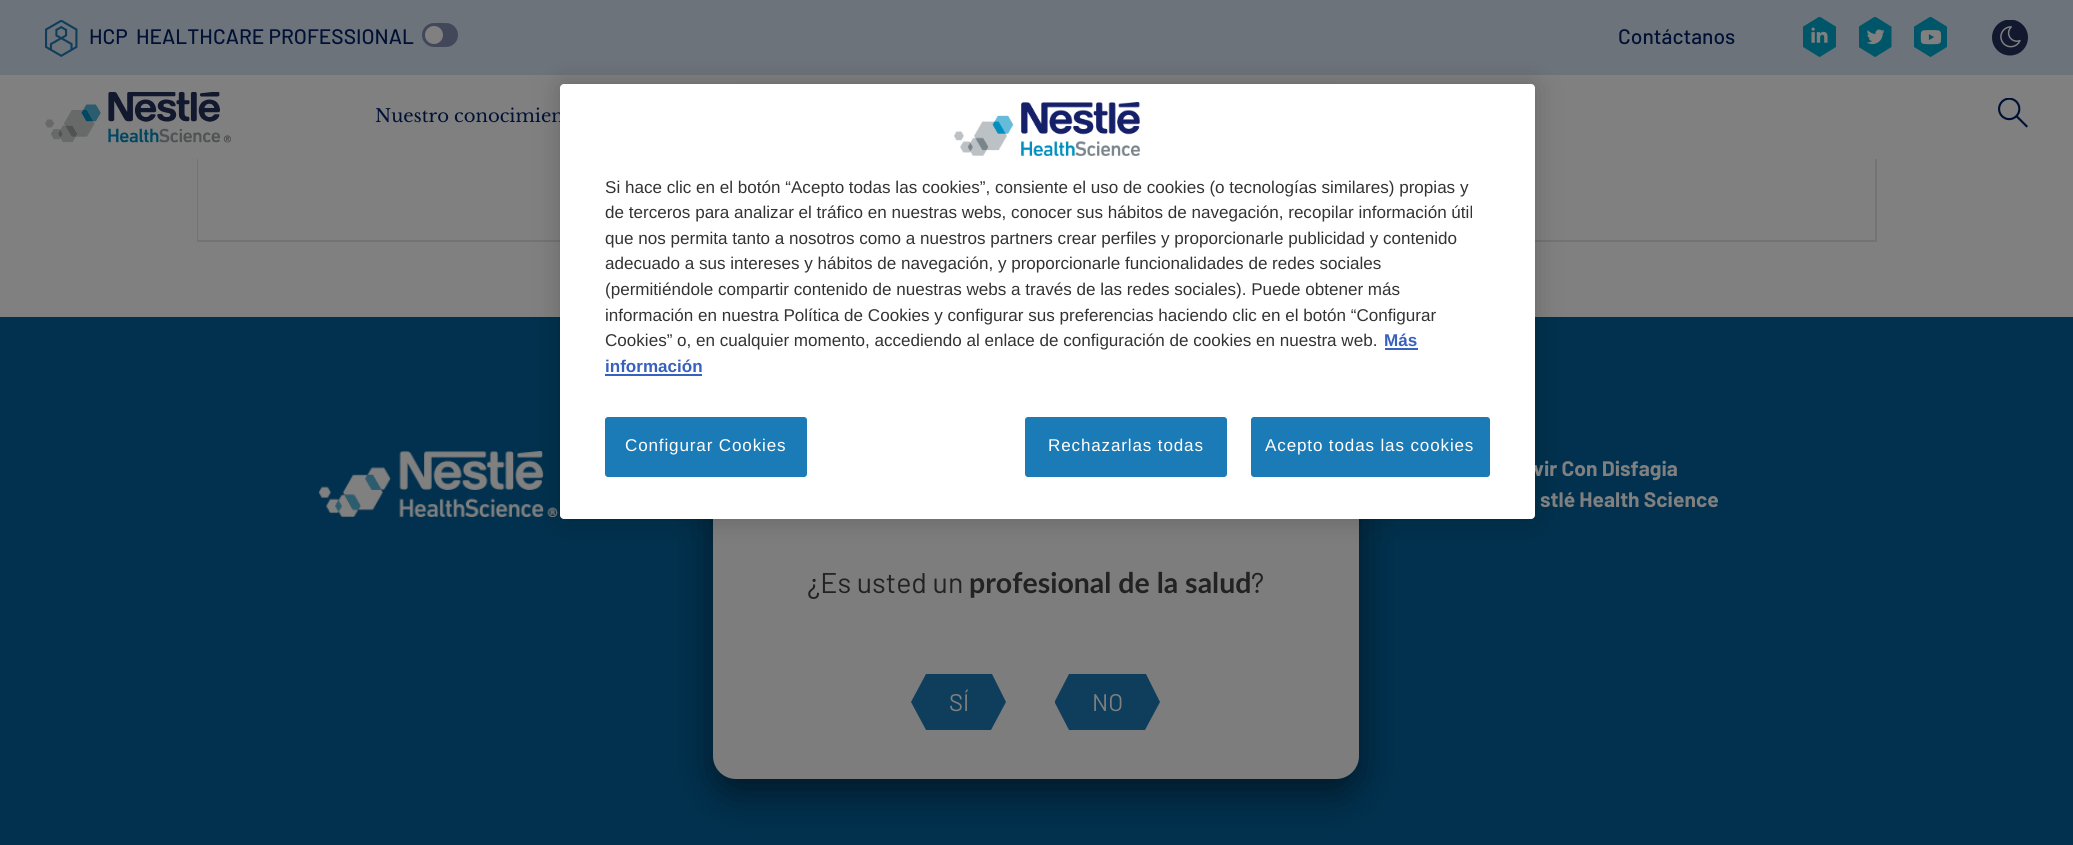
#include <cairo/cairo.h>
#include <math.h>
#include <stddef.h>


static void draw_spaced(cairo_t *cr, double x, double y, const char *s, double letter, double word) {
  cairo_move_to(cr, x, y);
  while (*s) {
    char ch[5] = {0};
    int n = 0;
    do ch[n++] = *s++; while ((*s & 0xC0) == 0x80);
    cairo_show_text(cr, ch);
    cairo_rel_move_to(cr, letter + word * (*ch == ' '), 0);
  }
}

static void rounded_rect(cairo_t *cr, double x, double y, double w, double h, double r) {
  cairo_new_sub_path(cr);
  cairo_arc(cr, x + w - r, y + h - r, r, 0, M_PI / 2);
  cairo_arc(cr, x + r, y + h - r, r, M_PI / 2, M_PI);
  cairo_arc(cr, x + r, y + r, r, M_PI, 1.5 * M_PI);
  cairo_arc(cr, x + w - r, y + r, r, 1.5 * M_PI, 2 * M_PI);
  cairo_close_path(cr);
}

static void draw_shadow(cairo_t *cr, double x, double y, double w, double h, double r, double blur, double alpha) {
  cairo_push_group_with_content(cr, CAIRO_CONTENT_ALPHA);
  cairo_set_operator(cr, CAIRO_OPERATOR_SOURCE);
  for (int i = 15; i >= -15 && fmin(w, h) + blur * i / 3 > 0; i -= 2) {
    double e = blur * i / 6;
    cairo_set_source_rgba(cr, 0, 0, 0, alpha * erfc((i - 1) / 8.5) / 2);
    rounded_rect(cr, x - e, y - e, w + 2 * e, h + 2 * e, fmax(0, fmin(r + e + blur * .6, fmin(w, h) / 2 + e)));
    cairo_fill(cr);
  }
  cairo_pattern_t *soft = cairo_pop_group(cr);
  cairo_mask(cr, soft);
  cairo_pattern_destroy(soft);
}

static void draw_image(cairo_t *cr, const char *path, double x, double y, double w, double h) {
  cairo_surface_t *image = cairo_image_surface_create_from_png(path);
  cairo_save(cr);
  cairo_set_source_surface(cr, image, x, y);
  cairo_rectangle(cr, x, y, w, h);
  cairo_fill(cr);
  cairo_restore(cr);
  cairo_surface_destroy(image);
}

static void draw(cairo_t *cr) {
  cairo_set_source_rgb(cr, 128 / 255.0, 128 / 255.0, 128 / 255.0);
  cairo_paint(cr);
  cairo_rectangle(cr, 198, -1, 1678, 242);
  cairo_set_source_rgb(cr, 115 / 255.0, 115 / 255.0, 115 / 255.0);
  cairo_stroke(cr);
  cairo_set_source_rgb(cr, 128 / 255.0, 128 / 255.0, 128 / 255.0);
  cairo_rectangle(cr, 198, 159, 1, 81);
  cairo_fill(cr);
  cairo_set_source_rgb(cr, 109 / 255.0, 115 / 255.0, 122 / 255.0);
  cairo_rectangle(cr, 0, 0, 2073, 75);
  cairo_fill(cr);
  draw_image(cr, "images/1.png", 45, 20, 33, 37);
  cairo_set_source_rgb(cr, 66 / 255.0, 72 / 255.0, 89 / 255.0);
  rounded_rect(cr, 422, 23, 36, 24, 12);
  cairo_fill(cr);
  cairo_set_source_rgb(cr, 128 / 255.0, 128 / 255.0, 128 / 255.0);
  cairo_arc(cr, 434, 35, 9, 0, 2 * M_PI);
  cairo_fill(cr);
  draw_image(cr, "images/2.png", 1803, 17, 33, 41);
  draw_image(cr, "images/3.png", 1859, 17, 33, 40);
  draw_image(cr, "images/4.png", 1914, 17, 33, 41);
  draw_image(cr, "images/5.png", 1992, 20, 36, 36);
  cairo_rectangle(cr, 197, 75, 1680, 84);
  cairo_fill(cr);
  draw_image(cr, "images/6.png", 45, 92, 186, 51);
  draw_image(cr, "images/7.png", 1998, 98, 30, 30);
  cairo_set_source_rgb(cr, 1 / 255.0, 49 / 255.0, 78 / 255.0);
  cairo_rectangle(cr, 0, 317, 2073, 528);
  cairo_fill(cr);
  draw_image(cr, "images/8.png", 318, 451, 240, 66);
  cairo_set_source_rgb(cr, 0, 0, 0);
  draw_shadow(cr, 713, 128, 646, 666, 23, 19, 0.5);
  cairo_set_source_rgb(cr, 125 / 255.0, 125 / 255.0, 125 / 255.0);
  rounded_rect(cr, 713, 113, 646, 666, 23);
  cairo_fill(cr);
  cairo_set_source_rgb(cr, 0, 0, 0);
  draw_shadow(cr, 560, 84, 975, 435, 4, 13.5, 0.2);
  cairo_set_source_rgb(cr, 14 / 255.0, 62 / 255.0, 92 / 255.0);
  cairo_new_path(cr);
  cairo_move_to(cr, 992, 674);
  cairo_line_to(cr, 1006, 702);
  cairo_line_to(cr, 991, 730);
  cairo_line_to(cr, 926, 730);
  cairo_line_to(cr, 911, 702);
  cairo_line_to(cr, 926, 674);
  cairo_close_path(cr);
  cairo_fill(cr);
  cairo_new_path(cr);
  cairo_move_to(cr, 1055, 701);
  cairo_line_to(cr, 1069, 674);
  cairo_line_to(cr, 1146, 674);
  cairo_line_to(cr, 1160, 702);
  cairo_line_to(cr, 1145, 730);
  cairo_line_to(cr, 1069, 730);
  cairo_line_to(cr, 1055, 703);
  cairo_close_path(cr);
  cairo_fill(cr);
  cairo_select_font_face(cr, "Barlow Medium", CAIRO_FONT_SLANT_NORMAL, CAIRO_FONT_WEIGHT_NORMAL);
  cairo_set_font_size(cr, 21);
  cairo_set_source_rgb(cr, 1 / 255.0, 17 / 255.0, 53 / 255.0);
  cairo_move_to(cr, 89, 44);
  cairo_show_text(cr, "HCP");
  cairo_move_to(cr, 136, 44);
  cairo_show_text(cr, "HEALTHCARE PROFESSIONAL");
  cairo_move_to(cr, 1618, 44);
  cairo_show_text(cr, "Contáctanos");
  cairo_select_font_face(cr, "Libre Baskerville", CAIRO_FONT_SLANT_NORMAL, CAIRO_FONT_WEIGHT_NORMAL);
  cairo_set_font_size(cr, 18);
  cairo_move_to(cr, 375, 122);
  cairo_show_text(cr, "Nuestro conocimien");
  cairo_select_font_face(cr, "Barlow", CAIRO_FONT_SLANT_NORMAL, CAIRO_FONT_WEIGHT_BOLD);
  cairo_set_font_size(cr, 21);
  cairo_set_source_rgb(cr, 128 / 255.0, 128 / 255.0, 128 / 255.0);
  cairo_move_to(cr, 1533, 476);
  cairo_show_text(cr, "vir Con Disfagia");
  cairo_move_to(cr, 1540, 507);
  cairo_show_text(cr, "stlé Health Science");
  cairo_set_source_rgb(cr, 1, 1, 1);
  rounded_rect(cr, 560, 84, 975, 435, 4);
  cairo_fill(cr);
  draw_image(cr, "images/9.png", 954, 102, 186, 54);
  cairo_select_font_face(cr, "Liberation Sans", CAIRO_FONT_SLANT_NORMAL, CAIRO_FONT_WEIGHT_NORMAL);
  cairo_set_font_size(cr, 17.07);
  cairo_set_source_rgb(cr, 51 / 255.0, 51 / 255.0, 51 / 255.0);
  cairo_move_to(cr, 605, 193);
  cairo_show_text(cr, "Si hace clic en el botón “Acepto todas las cookies”, consiente el uso de cookies (o tecnologías similares) propias y");
  cairo_move_to(cr, 605, 218);
  cairo_show_text(cr, "de terceros para analizar el tráfico en nuestras webs, conocer sus hábitos de navegación, recopilar información útil");
  cairo_move_to(cr, 605, 244);
  cairo_show_text(cr, "que nos permita tanto a nosotros como a nuestros partners crear perfiles y proporcionarle publicidad y contenido");
  cairo_move_to(cr, 605, 269);
  cairo_show_text(cr, "adecuado a sus intereses y hábitos de navegación, y proporcionarle funcionalidades de redes sociales");
  cairo_move_to(cr, 605, 295);
  cairo_show_text(cr, "(permitiéndole compartir contenido de nuestras webs a través de las redes sociales). Puede obtener más");
  cairo_move_to(cr, 605, 321);
  cairo_show_text(cr, "información en nuestra Política de Cookies y configurar sus preferencias haciendo clic en el botón “Configurar");
  cairo_move_to(cr, 605, 346);
  cairo_show_text(cr, "Cookies” o, en cualquier momento, accediendo al enlace de configuración de cookies en nuestra web.");
  cairo_select_font_face(cr, "Liberation Sans", CAIRO_FONT_SLANT_NORMAL, CAIRO_FONT_WEIGHT_BOLD);
  cairo_set_source_rgb(cr, 56 / 255.0, 96 / 255.0, 190 / 255.0);
  cairo_move_to(cr, 1384, 346);
  cairo_show_text(cr, "Más");
  cairo_rectangle(cr, 1385, 348, 33, 2);
  cairo_fill(cr);
  cairo_move_to(cr, 605, 372);
  cairo_show_text(cr, "información");
  cairo_rectangle(cr, 605, 374, 97, 2);
  cairo_fill(cr);
  cairo_set_source_rgb(cr, 27 / 255.0, 123 / 255.0, 183 / 255.0);
  rounded_rect(cr, 605, 417, 202, 60, 3);
  cairo_fill(cr);
  cairo_select_font_face(cr, "Liberation Sans", CAIRO_FONT_SLANT_NORMAL, CAIRO_FONT_WEIGHT_NORMAL);
  cairo_set_source_rgb(cr, 1, 1, 1);
  draw_spaced(cr, 625, 451, "Configurar Cookies", 0.85, 0);
  cairo_set_source_rgb(cr, 27 / 255.0, 123 / 255.0, 183 / 255.0);
  rounded_rect(cr, 1025, 417, 202, 60, 3);
  cairo_fill(cr);
  cairo_set_source_rgb(cr, 1, 1, 1);
  draw_spaced(cr, 1048, 451, "Rechazarlas todas", 0.85, 0);
  cairo_set_source_rgb(cr, 27 / 255.0, 123 / 255.0, 183 / 255.0);
  rounded_rect(cr, 1251, 417, 239, 60, 3);
  cairo_fill(cr);
  cairo_set_source_rgb(cr, 1, 1, 1);
  draw_spaced(cr, 1265, 451, "Acepto todas las cookies", 0.85, 0);
  cairo_select_font_face(cr, "Barlow", CAIRO_FONT_SLANT_NORMAL, CAIRO_FONT_WEIGHT_NORMAL);
  cairo_set_font_size(cr, 28.5);
  cairo_set_source_rgb(cr, 34 / 255.0, 34 / 255.0, 34 / 255.0);
  cairo_move_to(cr, 807, 593);
  cairo_show_text(cr, "¿Es usted un");
  cairo_select_font_face(cr, "Lato", CAIRO_FONT_SLANT_NORMAL, CAIRO_FONT_WEIGHT_BOLD);
  cairo_move_to(cr, 969, 593);
  cairo_show_text(cr, "profesional de la salud");
  cairo_select_font_face(cr, "Barlow", CAIRO_FONT_SLANT_NORMAL, CAIRO_FONT_WEIGHT_NORMAL);
  cairo_move_to(cr, 1251, 593);
  cairo_show_text(cr, "?");
  cairo_set_font_size(cr, 24);
  cairo_set_source_rgb(cr, 128 / 255.0, 128 / 255.0, 128 / 255.0);
  cairo_move_to(cr, 949, 711);
  cairo_show_text(cr, "SÍ");
  cairo_move_to(cr, 1092, 711);
  cairo_show_text(cr, "NO");
}

int main(void) {
  cairo_surface_t *surface = cairo_image_surface_create(CAIRO_FORMAT_RGB24, 2073, 845);
  cairo_t *cr = cairo_create(surface);
  cairo_font_options_t *options = cairo_font_options_create();
  cairo_font_options_set_hint_metrics(options, CAIRO_HINT_METRICS_OFF);
  cairo_font_options_set_hint_style(options, CAIRO_HINT_STYLE_NONE);
  cairo_set_font_options(cr, options);
  cairo_set_miter_limit(cr, 4);
  draw(cr);
  cairo_surface_write_to_png(surface, "out.png");
  cairo_font_options_destroy(options);
  cairo_destroy(cr);
  cairo_surface_destroy(surface);
  return 0;
}
